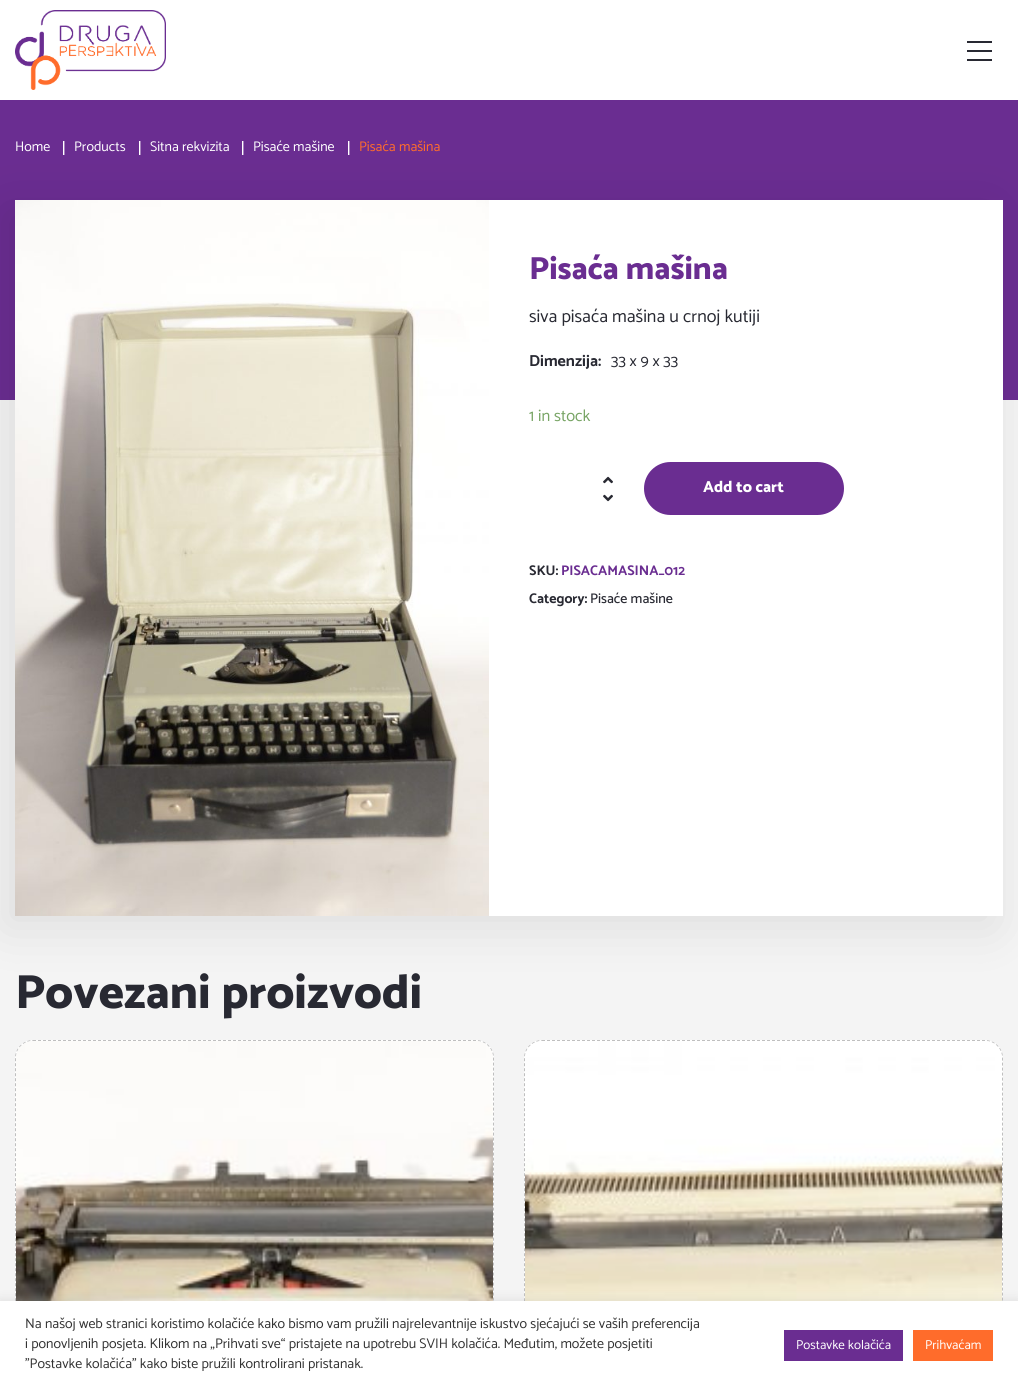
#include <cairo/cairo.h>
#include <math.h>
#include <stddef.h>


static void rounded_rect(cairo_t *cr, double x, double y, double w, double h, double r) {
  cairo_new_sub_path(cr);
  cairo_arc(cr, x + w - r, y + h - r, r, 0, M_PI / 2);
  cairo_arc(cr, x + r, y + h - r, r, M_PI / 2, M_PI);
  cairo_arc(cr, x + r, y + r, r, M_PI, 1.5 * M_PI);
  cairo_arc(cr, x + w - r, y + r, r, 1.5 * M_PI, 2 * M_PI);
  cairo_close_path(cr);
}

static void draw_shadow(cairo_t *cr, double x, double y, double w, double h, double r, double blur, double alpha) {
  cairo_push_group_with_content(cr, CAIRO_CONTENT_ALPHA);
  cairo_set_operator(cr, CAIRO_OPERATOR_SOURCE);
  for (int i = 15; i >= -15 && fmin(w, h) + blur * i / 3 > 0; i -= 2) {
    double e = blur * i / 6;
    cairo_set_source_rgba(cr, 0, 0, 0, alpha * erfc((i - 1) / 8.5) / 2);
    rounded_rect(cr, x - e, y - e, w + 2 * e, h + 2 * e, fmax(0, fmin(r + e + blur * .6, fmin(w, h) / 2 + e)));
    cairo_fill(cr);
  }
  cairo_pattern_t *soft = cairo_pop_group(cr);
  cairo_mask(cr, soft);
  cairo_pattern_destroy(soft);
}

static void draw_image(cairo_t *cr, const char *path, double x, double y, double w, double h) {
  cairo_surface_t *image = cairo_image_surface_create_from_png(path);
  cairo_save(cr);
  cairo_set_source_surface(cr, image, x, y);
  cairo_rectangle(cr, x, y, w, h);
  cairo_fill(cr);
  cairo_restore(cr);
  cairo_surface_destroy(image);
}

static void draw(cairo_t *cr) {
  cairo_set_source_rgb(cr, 244 / 255.0, 244 / 255.0, 244 / 255.0);
  cairo_paint(cr);
  cairo_set_source_rgb(cr, 1, 1, 1);
  cairo_rectangle(cr, 0, 0, 1018, 100);
  cairo_fill(cr);
  draw_image(cr, "images/1.png", 15, 10, 151, 80);
  cairo_set_source_rgb(cr, 40 / 255.0, 41 / 255.0, 50 / 255.0);
  cairo_rectangle(cr, 967, 41, 25, 2);
  cairo_fill(cr);
  cairo_rectangle(cr, 967, 50, 25, 2);
  cairo_fill(cr);
  cairo_rectangle(cr, 967, 59, 25, 2);
  cairo_fill(cr);
  cairo_set_source_rgb(cr, 106 / 255.0, 45 / 255.0, 145 / 255.0);
  cairo_rectangle(cr, 0, 100, 1018, 300);
  cairo_fill(cr);
  cairo_set_source_rgb(cr, 166 / 255.0, 129 / 255.0, 189 / 255.0);
  cairo_rectangle(cr, 64, 141, 1, 14);
  cairo_fill(cr);
  cairo_set_source_rgb(cr, 1, 1, 1);
  cairo_rectangle(cr, 63, 141, 1, 14);
  cairo_fill(cr);
  cairo_set_source_rgb(cr, 166 / 255.0, 129 / 255.0, 189 / 255.0);
  cairo_rectangle(cr, 140, 141, 1, 14);
  cairo_fill(cr);
  cairo_set_source_rgb(cr, 1, 1, 1);
  cairo_rectangle(cr, 139, 141, 1, 14);
  cairo_fill(cr);
  cairo_set_source_rgb(cr, 166 / 255.0, 129 / 255.0, 189 / 255.0);
  cairo_rectangle(cr, 243, 141, 1, 14);
  cairo_fill(cr);
  cairo_set_source_rgb(cr, 1, 1, 1);
  cairo_rectangle(cr, 242, 141, 1, 14);
  cairo_fill(cr);
  cairo_set_source_rgb(cr, 166 / 255.0, 129 / 255.0, 189 / 255.0);
  cairo_rectangle(cr, 349, 141, 1, 14);
  cairo_fill(cr);
  cairo_set_source_rgb(cr, 1, 1, 1);
  cairo_rectangle(cr, 348, 141, 1, 14);
  cairo_fill(cr);
  cairo_set_source_rgb(cr, 0, 0, 0);
  draw_shadow(cr, 5, 210, 988, 716, 0, 25, 0.1);
  cairo_set_source_rgb(cr, 1, 1, 1);
  cairo_rectangle(cr, 489, 200, 514, 716);
  cairo_fill(cr);
  draw_image(cr, "images/2.png", 15, 200, 474, 716);
  draw_image(cr, "images/3.png", 603, 476, 10, 8);
  draw_image(cr, "images/4.png", 603, 494, 10, 8);
  cairo_set_source_rgb(cr, 106 / 255.0, 45 / 255.0, 145 / 255.0);
  rounded_rect(cr, 644, 462, 200, 53, 26.5);
  cairo_fill(cr);
  cairo_set_source_rgb(cr, 1, 1, 1);
  rounded_rect(cr, 15, 1040, 479, 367, 18);
  cairo_fill(cr);
  cairo_new_path(cr);
  cairo_move_to(cr, 33, 1040.5);
  cairo_line_to(cr, 476, 1040.5);
  cairo_curve_to(cr, 485.5, 1040.5, 493.5, 1048.5, 493.5, 1058);
  cairo_line_to(cr, 493.5, 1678);
  cairo_curve_to(cr, 493.5, 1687.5, 485.5, 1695.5, 476, 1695.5);
  cairo_line_to(cr, 33, 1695.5);
  cairo_curve_to(cr, 23.5, 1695.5, 15.5, 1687.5, 15.5, 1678);
  cairo_line_to(cr, 15.5, 1058);
  cairo_curve_to(cr, 15.5, 1048.5, 23.5, 1040.5, 33, 1040.5);
  cairo_close_path(cr);
  cairo_set_source_rgba(cr, 0, 0, 0, 0.25);
  cairo_set_line_width(cr, 1);
  cairo_set_dash(cr, (double[]){3, 2}, 2, 0);
  cairo_stroke(cr);
  draw_image(cr, "images/5.png", 16, 1041, 477, 260);
  cairo_set_source_rgb(cr, 1, 1, 1);
  rounded_rect(cr, 524, 1040, 479, 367, 18);
  cairo_fill(cr);
  cairo_new_path(cr);
  cairo_move_to(cr, 542, 1040.5);
  cairo_line_to(cr, 985, 1040.5);
  cairo_curve_to(cr, 994.5, 1040.5, 1002.5, 1048.5, 1002.5, 1058);
  cairo_line_to(cr, 1002.5, 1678);
  cairo_curve_to(cr, 1002.5, 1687.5, 994.5, 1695.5, 985, 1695.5);
  cairo_line_to(cr, 542, 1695.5);
  cairo_curve_to(cr, 532.5, 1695.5, 524.5, 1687.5, 524.5, 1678);
  cairo_line_to(cr, 524.5, 1058);
  cairo_curve_to(cr, 524.5, 1048.5, 532.5, 1040.5, 542, 1040.5);
  cairo_close_path(cr);
  cairo_set_source_rgba(cr, 0, 0, 0, 0.25);
  cairo_stroke(cr);
  draw_image(cr, "images/6.png", 525, 1041, 477, 260);
  cairo_set_source_rgb(cr, 172 / 255.0, 171 / 255.0, 171 / 255.0);
  draw_shadow(cr, 0, 1300, 1018, 88, 0, 5, 0.3);
  cairo_set_source_rgb(cr, 1, 1, 1);
  cairo_rectangle(cr, 0, 1301, 1018, 88);
  cairo_fill(cr);
  cairo_set_source_rgb(cr, 106 / 255.0, 45 / 255.0, 145 / 255.0);
  cairo_rectangle(cr, 784, 1330, 119, 31);
  cairo_fill(cr);
  cairo_set_source_rgb(cr, 1, 108 / 255.0, 43 / 255.0);
  cairo_rectangle(cr, 913, 1330, 80, 31);
  cairo_fill(cr);
  cairo_select_font_face(cr, "Catamaran", CAIRO_FONT_SLANT_NORMAL, CAIRO_FONT_WEIGHT_NORMAL);
  cairo_set_font_size(cr, 14);
  cairo_set_source_rgb(cr, 1, 1, 1);
  cairo_move_to(cr, 15, 151);
  cairo_show_text(cr, "Home");
  cairo_move_to(cr, 74, 151);
  cairo_show_text(cr, "Products");
  cairo_move_to(cr, 150, 151);
  cairo_show_text(cr, "Sitna rekvizita");
  cairo_move_to(cr, 253, 151);
  cairo_show_text(cr, "Pisaće mašine");
  cairo_set_source_rgb(cr, 1, 108 / 255.0, 43 / 255.0);
  cairo_move_to(cr, 359, 151);
  cairo_show_text(cr, "Pisaća mašina");
  cairo_select_font_face(cr, "Catamaran ExtraBold", CAIRO_FONT_SLANT_NORMAL, CAIRO_FONT_WEIGHT_NORMAL);
  cairo_set_font_size(cr, 32);
  cairo_set_source_rgb(cr, 106 / 255.0, 45 / 255.0, 145 / 255.0);
  cairo_move_to(cr, 529, 279);
  cairo_show_text(cr, "Pisaća mašina");
  cairo_select_font_face(cr, "Catamaran", CAIRO_FONT_SLANT_NORMAL, CAIRO_FONT_WEIGHT_NORMAL);
  cairo_set_font_size(cr, 18);
  cairo_set_source_rgb(cr, 40 / 255.0, 41 / 255.0, 50 / 255.0);
  cairo_move_to(cr, 529, 322);
  cairo_show_text(cr, "siva pisaća mašina u crnoj kutiji");
  cairo_select_font_face(cr, "Catamaran", CAIRO_FONT_SLANT_NORMAL, CAIRO_FONT_WEIGHT_BOLD);
  cairo_set_font_size(cr, 16);
  cairo_move_to(cr, 529, 366);
  cairo_show_text(cr, "Dimenzija:");
  cairo_select_font_face(cr, "Catamaran", CAIRO_FONT_SLANT_NORMAL, CAIRO_FONT_WEIGHT_NORMAL);
  cairo_move_to(cr, 611, 366);
  cairo_show_text(cr, "33 x 9 x 33");
  cairo_set_font_size(cr, 16.5);
  cairo_set_source_rgb(cr, 119 / 255.0, 164 / 255.0, 100 / 255.0);
  cairo_move_to(cr, 529, 421);
  cairo_show_text(cr, "1 in stock");
  cairo_select_font_face(cr, "Catamaran ExtraBold", CAIRO_FONT_SLANT_NORMAL, CAIRO_FONT_WEIGHT_NORMAL);
  cairo_set_font_size(cr, 16);
  cairo_set_source_rgb(cr, 1, 1, 1);
  cairo_move_to(cr, 703, 492);
  cairo_show_text(cr, "Add to cart");
  cairo_select_font_face(cr, "Catamaran", CAIRO_FONT_SLANT_NORMAL, CAIRO_FONT_WEIGHT_BOLD);
  cairo_set_font_size(cr, 14);
  cairo_set_source_rgb(cr, 40 / 255.0, 41 / 255.0, 50 / 255.0);
  cairo_move_to(cr, 529, 575);
  cairo_show_text(cr, "SKU:");
  cairo_set_source_rgb(cr, 106 / 255.0, 45 / 255.0, 145 / 255.0);
  cairo_move_to(cr, 561, 575);
  cairo_show_text(cr, "PISACAMASINA_012");
  cairo_set_source_rgb(cr, 40 / 255.0, 41 / 255.0, 50 / 255.0);
  cairo_move_to(cr, 529, 603);
  cairo_show_text(cr, "Category:");
  cairo_select_font_face(cr, "Catamaran Medium", CAIRO_FONT_SLANT_NORMAL, CAIRO_FONT_WEIGHT_NORMAL);
  cairo_move_to(cr, 590, 603);
  cairo_show_text(cr, "Pisaće mašine");
  cairo_select_font_face(cr, "Catamaran ExtraBold", CAIRO_FONT_SLANT_NORMAL, CAIRO_FONT_WEIGHT_NORMAL);
  cairo_set_font_size(cr, 48);
  cairo_move_to(cr, 15, 1008);
  cairo_show_text(cr, "Povezani proizvodi");
  cairo_select_font_face(cr, "Catamaran", CAIRO_FONT_SLANT_NORMAL, CAIRO_FONT_WEIGHT_NORMAL);
  cairo_set_font_size(cr, 14);
  cairo_set_source_rgb(cr, 51 / 255.0, 51 / 255.0, 51 / 255.0);
  cairo_move_to(cr, 25, 1328);
  cairo_show_text(cr, "Na našoj web stranici koristimo kolačiće kako bismo vam pružili najrelevantnije iskustvo sjećajući se vaših preferencija");
  cairo_move_to(cr, 25, 1348);
  cairo_show_text(cr, "i ponovljenih posjeta. Klikom na „Prihvati sve“ pristajete na upotrebu SVIH kolačića. Međutim, možete posjetiti");
  cairo_move_to(cr, 25, 1368);
  cairo_show_text(cr, "\"Postavke kolačića\" kako biste pružili kontrolirani pristanak.");
  cairo_set_font_size(cr, 13);
  cairo_set_source_rgb(cr, 1, 1, 1);
  cairo_move_to(cr, 796, 1349);
  cairo_show_text(cr, "Postavke kolačića");
  cairo_move_to(cr, 925, 1349);
  cairo_show_text(cr, "Prihvaćam");
}

int main(void) {
  cairo_surface_t *surface = cairo_image_surface_create(CAIRO_FORMAT_RGB24, 1018, 1389);
  cairo_t *cr = cairo_create(surface);
  cairo_font_options_t *options = cairo_font_options_create();
  cairo_font_options_set_hint_metrics(options, CAIRO_HINT_METRICS_OFF);
  cairo_font_options_set_hint_style(options, CAIRO_HINT_STYLE_NONE);
  cairo_set_font_options(cr, options);
  cairo_set_miter_limit(cr, 4);
  draw(cr);
  cairo_surface_write_to_png(surface, "out.png");
  cairo_font_options_destroy(options);
  cairo_destroy(cr);
  cairo_surface_destroy(surface);
  return 0;
}
